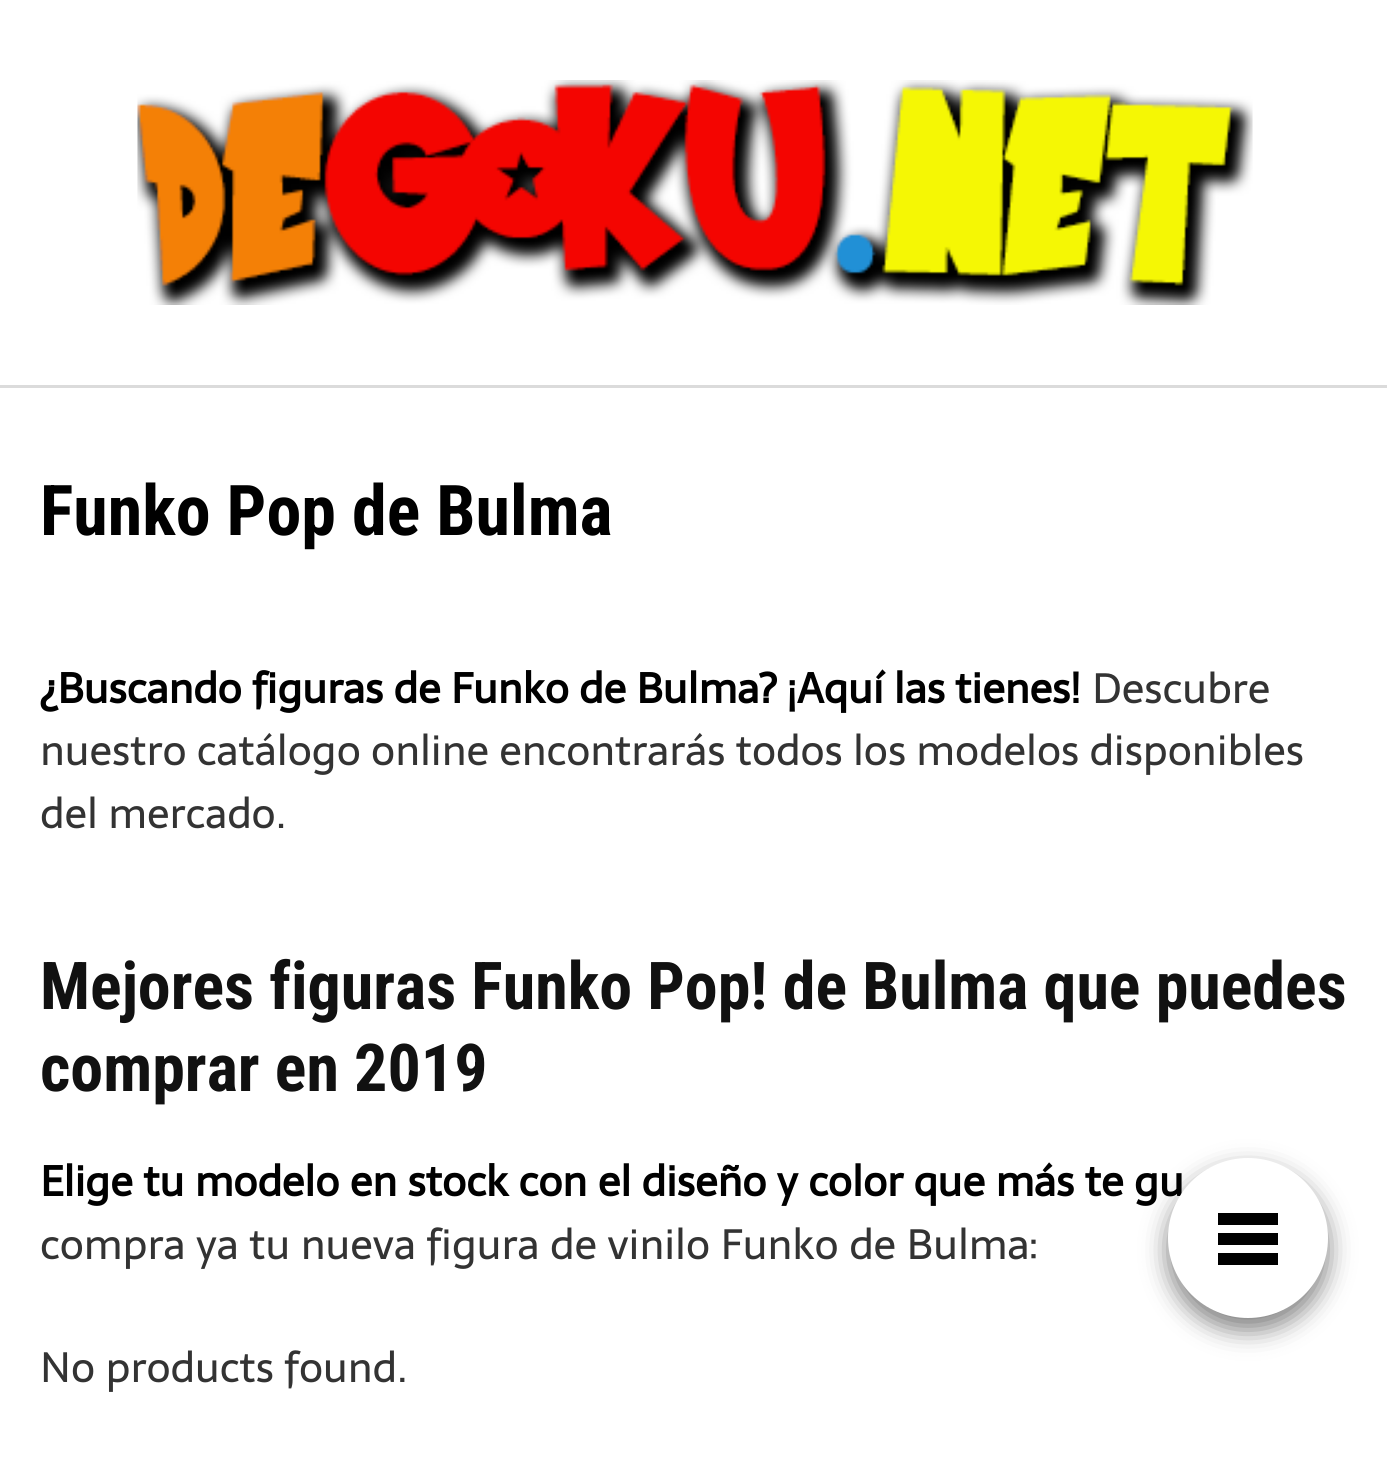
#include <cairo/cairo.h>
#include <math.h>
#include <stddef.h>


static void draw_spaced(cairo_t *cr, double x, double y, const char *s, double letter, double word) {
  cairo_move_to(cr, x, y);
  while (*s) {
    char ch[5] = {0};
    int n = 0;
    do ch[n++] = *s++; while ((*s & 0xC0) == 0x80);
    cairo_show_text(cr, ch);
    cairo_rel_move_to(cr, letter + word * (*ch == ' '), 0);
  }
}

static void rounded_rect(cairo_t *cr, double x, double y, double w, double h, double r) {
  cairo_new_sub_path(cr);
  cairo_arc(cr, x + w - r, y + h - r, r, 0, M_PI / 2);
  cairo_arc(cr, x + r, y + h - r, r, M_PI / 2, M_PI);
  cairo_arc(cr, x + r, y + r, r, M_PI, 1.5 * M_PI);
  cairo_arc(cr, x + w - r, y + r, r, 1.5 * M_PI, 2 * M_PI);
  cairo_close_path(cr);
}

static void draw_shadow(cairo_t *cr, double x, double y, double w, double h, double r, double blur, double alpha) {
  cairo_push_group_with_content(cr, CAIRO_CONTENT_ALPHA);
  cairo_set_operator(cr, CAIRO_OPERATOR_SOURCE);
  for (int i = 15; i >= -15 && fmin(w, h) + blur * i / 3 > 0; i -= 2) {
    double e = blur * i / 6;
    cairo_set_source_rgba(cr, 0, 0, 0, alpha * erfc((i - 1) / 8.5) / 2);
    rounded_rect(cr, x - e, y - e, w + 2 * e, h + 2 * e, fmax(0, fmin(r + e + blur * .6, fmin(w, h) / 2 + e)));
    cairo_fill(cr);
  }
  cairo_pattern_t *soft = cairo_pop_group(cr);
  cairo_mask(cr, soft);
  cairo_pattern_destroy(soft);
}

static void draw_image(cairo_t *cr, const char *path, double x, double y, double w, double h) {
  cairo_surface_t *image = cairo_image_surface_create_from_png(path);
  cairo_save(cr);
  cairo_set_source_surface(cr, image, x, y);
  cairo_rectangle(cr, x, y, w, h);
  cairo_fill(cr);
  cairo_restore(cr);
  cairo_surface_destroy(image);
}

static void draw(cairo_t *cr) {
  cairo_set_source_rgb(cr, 1, 1, 1);
  cairo_paint(cr);
  cairo_set_source_rgb(cr, 219 / 255.0, 219 / 255.0, 219 / 255.0);
  cairo_rectangle(cr, 0, 385, 1387, 3);
  cairo_fill(cr);
  draw_image(cr, "images/1.png", 137, 80, 1116, 225);
  cairo_set_source_rgb(cr, 0, 0, 0);
  draw_shadow(cr, 1168, 1170, 160, 160, 80, 12.5, 0.5);
  cairo_select_font_face(cr, "Roboto Condensed", CAIRO_FONT_SLANT_NORMAL, CAIRO_FONT_WEIGHT_BOLD);
  cairo_set_font_size(cr, 70);
  cairo_set_source_rgb(cr, 0, 0, 0);
  cairo_move_to(cr, 40, 535);
  cairo_show_text(cr, "Funko Pop de Bulma");
  cairo_select_font_face(cr, "Sarala", CAIRO_FONT_SLANT_NORMAL, CAIRO_FONT_WEIGHT_BOLD);
  cairo_set_font_size(cr, 42);
  draw_spaced(cr, 40, 703, "¿Buscando figuras de Funko de Bulma? ¡Aquí las tienes!", 0, -0.25);
  cairo_select_font_face(cr, "Sarala", CAIRO_FONT_SLANT_NORMAL, CAIRO_FONT_WEIGHT_NORMAL);
  cairo_set_source_rgb(cr, 51 / 255.0, 51 / 255.0, 51 / 255.0);
  cairo_move_to(cr, 1092, 703);
  cairo_show_text(cr, "Descubre");
  draw_spaced(cr, 40, 765, "nuestro catálogo online encontrarás todos los modelos disponibles", 0, -0.25);
  cairo_move_to(cr, 40, 828);
  cairo_show_text(cr, "del mercado.");
  cairo_select_font_face(cr, "Roboto Condensed", CAIRO_FONT_SLANT_NORMAL, CAIRO_FONT_WEIGHT_BOLD);
  cairo_set_font_size(cr, 66);
  cairo_set_source_rgb(cr, 17 / 255.0, 17 / 255.0, 17 / 255.0);
  cairo_move_to(cr, 40, 1009);
  cairo_show_text(cr, "Mejores figuras Funko Pop! de Bulma que puedes");
  cairo_move_to(cr, 40, 1091);
  cairo_show_text(cr, "comprar en 2019");
  cairo_select_font_face(cr, "Sarala", CAIRO_FONT_SLANT_NORMAL, CAIRO_FONT_WEIGHT_BOLD);
  cairo_set_font_size(cr, 42);
  cairo_set_source_rgb(cr, 0, 0, 0);
  cairo_move_to(cr, 40, 1196);
  cairo_show_text(cr, "Elige tu modelo en stock con el diseño y color que más te gu");
  cairo_select_font_face(cr, "Sarala", CAIRO_FONT_SLANT_NORMAL, CAIRO_FONT_WEIGHT_NORMAL);
  cairo_set_source_rgb(cr, 51 / 255.0, 51 / 255.0, 51 / 255.0);
  cairo_move_to(cr, 40, 1259);
  cairo_show_text(cr, "compra ya tu nueva figura de vinilo Funko de Bulma:");
  cairo_move_to(cr, 40, 1382);
  cairo_show_text(cr, "No products found.");
  cairo_set_source_rgb(cr, 1, 1, 1);
  cairo_new_path(cr);
  cairo_arc(cr, 1248, 1238, 80, 0, 2 * M_PI);
  cairo_fill(cr);
  cairo_set_source_rgb(cr, 0, 0, 0);
  cairo_rectangle(cr, 1218, 1233, 60, 12);
  cairo_fill(cr);
  cairo_rectangle(cr, 1218, 1213, 60, 12);
  cairo_fill(cr);
  cairo_rectangle(cr, 1218, 1253, 60, 12);
  cairo_fill(cr);
}

int main(void) {
  cairo_surface_t *surface = cairo_image_surface_create(CAIRO_FORMAT_RGB24, 1387, 1476);
  cairo_t *cr = cairo_create(surface);
  cairo_font_options_t *options = cairo_font_options_create();
  cairo_font_options_set_hint_metrics(options, CAIRO_HINT_METRICS_OFF);
  cairo_font_options_set_hint_style(options, CAIRO_HINT_STYLE_NONE);
  cairo_set_font_options(cr, options);
  cairo_set_miter_limit(cr, 4);
  draw(cr);
  cairo_surface_write_to_png(surface, "out.png");
  cairo_font_options_destroy(options);
  cairo_destroy(cr);
  cairo_surface_destroy(surface);
  return 0;
}
